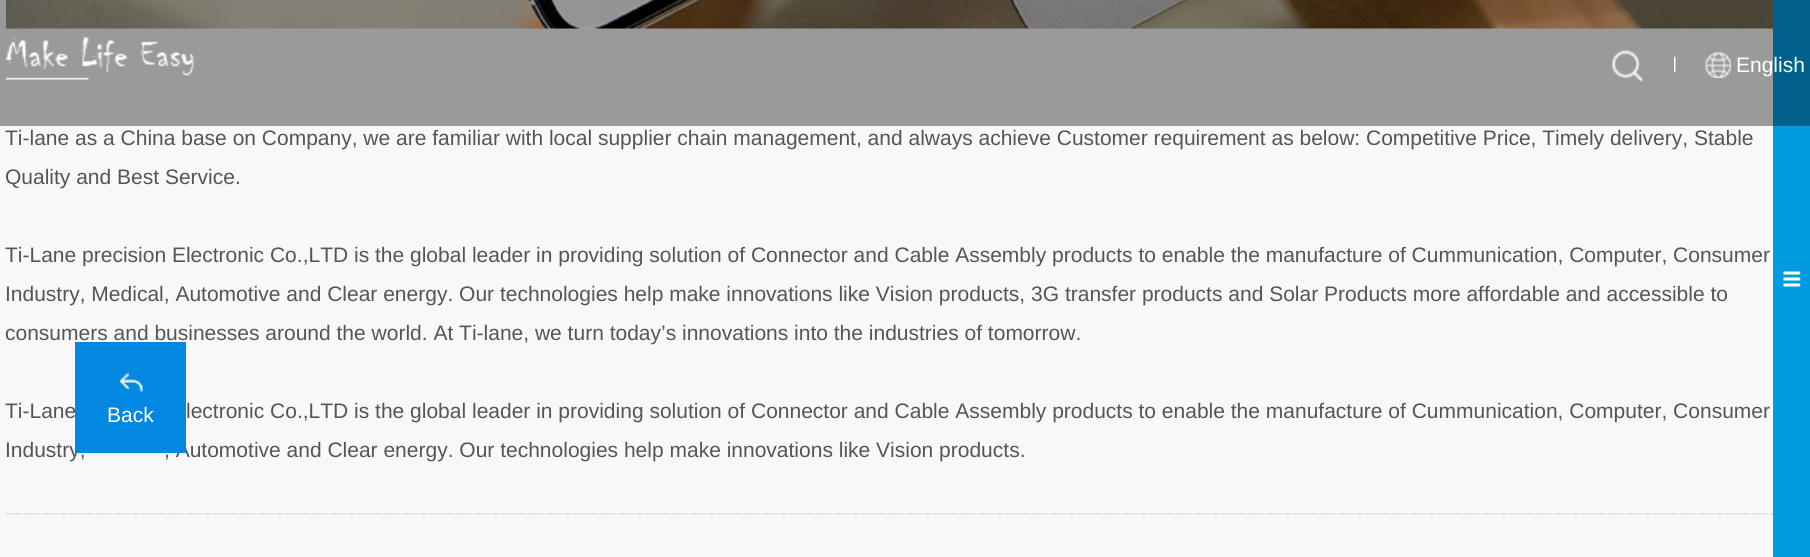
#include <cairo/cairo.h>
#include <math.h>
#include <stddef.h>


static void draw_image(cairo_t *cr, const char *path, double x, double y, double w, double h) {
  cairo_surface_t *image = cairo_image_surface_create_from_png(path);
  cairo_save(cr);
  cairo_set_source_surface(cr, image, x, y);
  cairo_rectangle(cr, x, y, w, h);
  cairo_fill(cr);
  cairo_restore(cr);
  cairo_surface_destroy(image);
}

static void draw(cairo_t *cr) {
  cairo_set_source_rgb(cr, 248 / 255.0, 248 / 255.0, 248 / 255.0);
  cairo_paint(cr);
  cairo_set_source_rgb(cr, 154 / 255.0, 154 / 255.0, 154 / 255.0);
  cairo_rectangle(cr, 0, 0, 1773, 126);
  cairo_fill(cr);
  cairo_set_source_rgb(cr, 1 / 255.0, 155 / 255.0, 225 / 255.0);
  cairo_rectangle(cr, 1773, 126, 37, 431);
  cairo_fill(cr);
  cairo_set_source_rgb(cr, 1 / 255.0, 96 / 255.0, 140 / 255.0);
  cairo_rectangle(cr, 1773, 0, 37, 126);
  cairo_fill(cr);
  draw_image(cr, "images/1.png", 1783, 271, 18, 16);
  draw_image(cr, "images/2.png", 6, 37, 188, 43);
  draw_image(cr, "images/3.png", 1612, 50, 31, 32);
  draw_image(cr, "images/4.png", 1674, 56, 2, 17);
  draw_image(cr, "images/5.png", 1705, 52, 26, 26);
  draw_image(cr, "images/6.png", 6, 513, 1767, 2);
  draw_image(cr, "images/7.png", 6, 0, 1767, 29);
  cairo_select_font_face(cr, "Liberation Sans", CAIRO_FONT_SLANT_NORMAL, CAIRO_FONT_WEIGHT_NORMAL);
  cairo_set_font_size(cr, 21);
  cairo_set_source_rgb(cr, 1, 1, 1);
  cairo_move_to(cr, 1736, 72);
  cairo_show_text(cr, "English");
  cairo_set_source_rgb(cr, 85 / 255.0, 85 / 255.0, 85 / 255.0);
  cairo_move_to(cr, 5, 145);
  cairo_show_text(cr, "Ti-lane as a China base on Company, we are familiar with local supplier chain management, and always achieve Customer requirement as below: Competitive Price, Timely delivery, Stable");
  cairo_move_to(cr, 5, 184);
  cairo_show_text(cr, "Quality and Best Service.");
  cairo_move_to(cr, 5, 262);
  cairo_show_text(cr, "Ti-Lane precision Electronic Co.,LTD is the global leader in providing solution of Connector and Cable Assembly products to enable the manufacture of Cummunication, Computer, Consumer");
  cairo_move_to(cr, 5, 301);
  cairo_show_text(cr, "Industry, Medical, Automotive and Clear energy. Our technologies help make innovations like Vision products, 3G transfer products and Solar Products more affordable and accessible to");
  cairo_move_to(cr, 5, 340);
  cairo_show_text(cr, "consumers and businesses around the world. At Ti-lane, we turn today’s innovations into the industries of tomorrow.");
  cairo_move_to(cr, 5, 418);
  cairo_show_text(cr, "Ti-Lane");
  cairo_move_to(cr, 186, 418);
  cairo_show_text(cr, "lectronic Co.,LTD is the global leader in providing solution of Connector and Cable Assembly products to enable the manufacture of Cummunication, Computer, Consumer");
  cairo_move_to(cr, 5, 457);
  cairo_show_text(cr, "Industry,");
  cairo_move_to(cr, 164, 457);
  cairo_show_text(cr, ", Automotive and Clear energy. Our technologies help make innovations like Vision products.");
  cairo_set_source_rgb(cr, 2 / 255.0, 136 / 255.0, 225 / 255.0);
  cairo_rectangle(cr, 75, 342, 111, 111);
  cairo_fill(cr);
  draw_image(cr, "images/8.png", 120, 373, 23, 19);
  cairo_set_source_rgb(cr, 1, 1, 1);
  cairo_move_to(cr, 107, 422);
  cairo_show_text(cr, "Back");
}

int main(void) {
  cairo_surface_t *surface = cairo_image_surface_create(CAIRO_FORMAT_RGB24, 1810, 557);
  cairo_t *cr = cairo_create(surface);
  cairo_font_options_t *options = cairo_font_options_create();
  cairo_font_options_set_hint_metrics(options, CAIRO_HINT_METRICS_OFF);
  cairo_font_options_set_hint_style(options, CAIRO_HINT_STYLE_NONE);
  cairo_set_font_options(cr, options);
  cairo_set_miter_limit(cr, 4);
  draw(cr);
  cairo_surface_write_to_png(surface, "out.png");
  cairo_font_options_destroy(options);
  cairo_destroy(cr);
  cairo_surface_destroy(surface);
  return 0;
}
